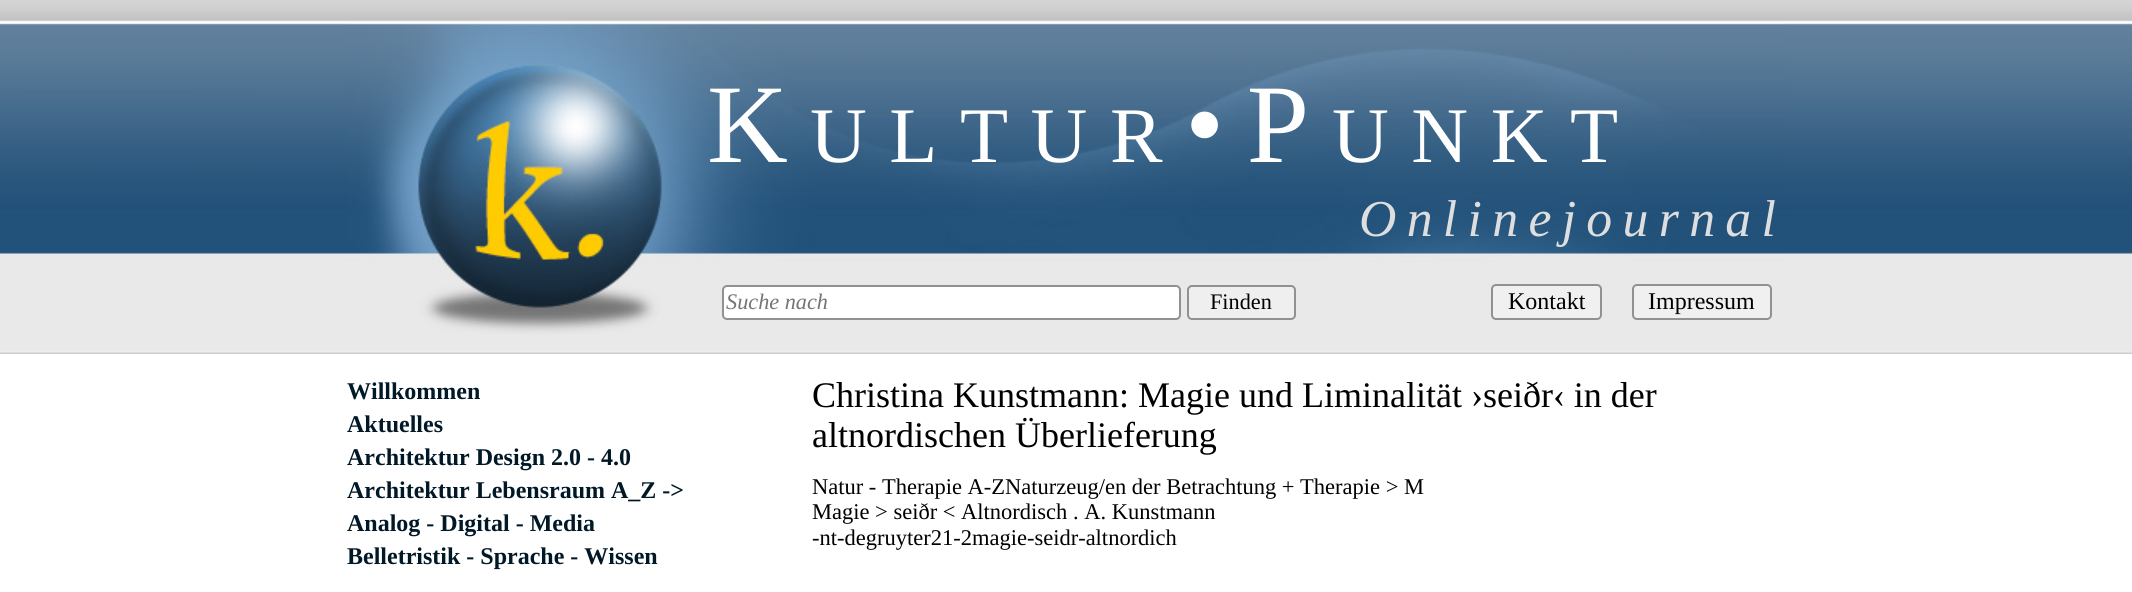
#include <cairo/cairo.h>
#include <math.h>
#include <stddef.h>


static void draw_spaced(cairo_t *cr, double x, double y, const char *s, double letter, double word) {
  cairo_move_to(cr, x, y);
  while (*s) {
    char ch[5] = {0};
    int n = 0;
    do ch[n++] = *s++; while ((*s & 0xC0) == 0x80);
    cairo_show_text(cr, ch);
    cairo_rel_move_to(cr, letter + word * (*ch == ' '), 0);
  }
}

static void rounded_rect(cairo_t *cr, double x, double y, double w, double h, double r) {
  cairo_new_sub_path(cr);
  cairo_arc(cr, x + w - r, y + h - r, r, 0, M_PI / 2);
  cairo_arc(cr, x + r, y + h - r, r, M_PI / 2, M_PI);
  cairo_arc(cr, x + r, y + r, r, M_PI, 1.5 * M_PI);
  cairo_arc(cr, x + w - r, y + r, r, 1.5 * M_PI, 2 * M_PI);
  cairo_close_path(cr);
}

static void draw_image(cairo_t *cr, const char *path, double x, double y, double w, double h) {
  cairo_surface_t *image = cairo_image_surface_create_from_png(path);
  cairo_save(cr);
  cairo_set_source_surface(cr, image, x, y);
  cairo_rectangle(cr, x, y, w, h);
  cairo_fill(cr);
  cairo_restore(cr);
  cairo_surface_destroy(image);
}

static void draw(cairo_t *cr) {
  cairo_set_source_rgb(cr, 1, 1, 1);
  cairo_paint(cr);
  draw_image(cr, "images/1.png", 0, 0, 2132, 354);
  draw_image(cr, "images/2.png", 347, 23, 1439, 311);
  cairo_set_source_rgb(cr, 1, 1, 1);
  rounded_rect(cr, 723, 286, 457, 33, 4);
  cairo_fill_preserve(cr);
  cairo_set_source_rgb(cr, 145 / 255.0, 145 / 255.0, 145 / 255.0);
  cairo_stroke(cr);
  cairo_set_source_rgb(cr, 239 / 255.0, 239 / 255.0, 239 / 255.0);
  rounded_rect(cr, 1188, 286, 107, 33, 4);
  cairo_fill_preserve(cr);
  cairo_set_source_rgb(cr, 145 / 255.0, 145 / 255.0, 145 / 255.0);
  cairo_stroke(cr);
  cairo_set_source_rgb(cr, 240 / 255.0, 240 / 255.0, 240 / 255.0);
  rounded_rect(cr, 1492, 285, 109, 34, 4);
  cairo_fill_preserve(cr);
  cairo_set_source_rgb(cr, 145 / 255.0, 145 / 255.0, 145 / 255.0);
  cairo_stroke(cr);
  cairo_set_source_rgb(cr, 240 / 255.0, 240 / 255.0, 240 / 255.0);
  rounded_rect(cr, 1633, 285, 138, 34, 4);
  cairo_fill_preserve(cr);
  cairo_set_source_rgb(cr, 145 / 255.0, 145 / 255.0, 145 / 255.0);
  cairo_stroke(cr);
  cairo_select_font_face(cr, "Liberation Serif", CAIRO_FONT_SLANT_NORMAL, CAIRO_FONT_WEIGHT_NORMAL);
  cairo_set_font_size(cr, 112);
  cairo_set_source_rgb(cr, 1, 1, 1);
  draw_spaced(cr, 707, 162, "K", 22.5, 0);
  cairo_set_font_size(cr, 78.75);
  draw_spaced(cr, 810, 162, "ULTUR", 22.5, 0);
  cairo_set_font_size(cr, 112);
  draw_spaced(cr, 1185, 162, "•P", 22.5, 0);
  cairo_set_font_size(cr, 78.75);
  draw_spaced(cr, 1332, 162, "UNKT", 22.5, 0);
  cairo_select_font_face(cr, "Liberation Serif", CAIRO_FONT_SLANT_ITALIC, CAIRO_FONT_WEIGHT_NORMAL);
  cairo_set_font_size(cr, 51.75);
  cairo_set_source_rgb(cr, 222 / 255.0, 222 / 255.0, 222 / 255.0);
  draw_spaced(cr, 1359, 236, "Onlinejournal", 10.3, 0);
  cairo_set_font_size(cr, 22.25);
  cairo_set_source_rgb(cr, 117 / 255.0, 117 / 255.0, 117 / 255.0);
  cairo_move_to(cr, 726, 309);
  cairo_show_text(cr, "Suche nach");
  cairo_select_font_face(cr, "Liberation Serif", CAIRO_FONT_SLANT_NORMAL, CAIRO_FONT_WEIGHT_NORMAL);
  cairo_set_source_rgb(cr, 0, 0, 0);
  cairo_move_to(cr, 1210, 309);
  cairo_show_text(cr, "Finden");
  cairo_set_font_size(cr, 24);
  cairo_move_to(cr, 1508, 309);
  cairo_show_text(cr, "Kontakt");
  cairo_move_to(cr, 1648, 309);
  cairo_show_text(cr, "Impressum");
  cairo_select_font_face(cr, "Liberation Serif", CAIRO_FONT_SLANT_NORMAL, CAIRO_FONT_WEIGHT_BOLD);
  cairo_set_source_rgb(cr, 1 / 255.0, 24 / 255.0, 39 / 255.0);
  cairo_move_to(cr, 347, 399);
  cairo_show_text(cr, "Willkommen");
  cairo_move_to(cr, 347, 432);
  cairo_show_text(cr, "Aktuelles");
  cairo_move_to(cr, 347, 465);
  cairo_show_text(cr, "Architektur Design 2.0 - 4.0");
  cairo_move_to(cr, 347, 498);
  cairo_show_text(cr, "Architektur Lebensraum A_Z ->");
  cairo_move_to(cr, 347, 531);
  cairo_show_text(cr, "Analog - Digital - Media");
  cairo_move_to(cr, 347, 564);
  cairo_show_text(cr, "Belletristik - Sprache - Wissen");
  cairo_select_font_face(cr, "Liberation Serif", CAIRO_FONT_SLANT_NORMAL, CAIRO_FONT_WEIGHT_NORMAL);
  cairo_set_font_size(cr, 36);
  cairo_set_source_rgb(cr, 0, 0, 0);
  cairo_move_to(cr, 812, 407);
  cairo_show_text(cr, "Christina Kunstmann: Magie und Liminalität ›seiðr‹ in der");
  cairo_move_to(cr, 812, 447);
  cairo_show_text(cr, "altnordischen Überlieferung");
  cairo_set_font_size(cr, 22.5);
  cairo_move_to(cr, 812, 494);
  cairo_show_text(cr, "Natur - Therapie A-ZNaturzeug/en der Betrachtung + Therapie > M");
  cairo_move_to(cr, 812, 519);
  cairo_show_text(cr, "Magie > seiðr < Altnordisch . A. Kunstmann");
  cairo_move_to(cr, 812, 545);
  cairo_show_text(cr, "-nt-degruyter21-2magie-seidr-altnordich");
}

int main(void) {
  cairo_surface_t *surface = cairo_image_surface_create(CAIRO_FORMAT_RGB24, 2132, 592);
  cairo_t *cr = cairo_create(surface);
  cairo_font_options_t *options = cairo_font_options_create();
  cairo_font_options_set_hint_metrics(options, CAIRO_HINT_METRICS_OFF);
  cairo_font_options_set_hint_style(options, CAIRO_HINT_STYLE_NONE);
  cairo_set_font_options(cr, options);
  cairo_set_miter_limit(cr, 4);
  draw(cr);
  cairo_surface_write_to_png(surface, "out.png");
  cairo_font_options_destroy(options);
  cairo_destroy(cr);
  cairo_surface_destroy(surface);
  return 0;
}
